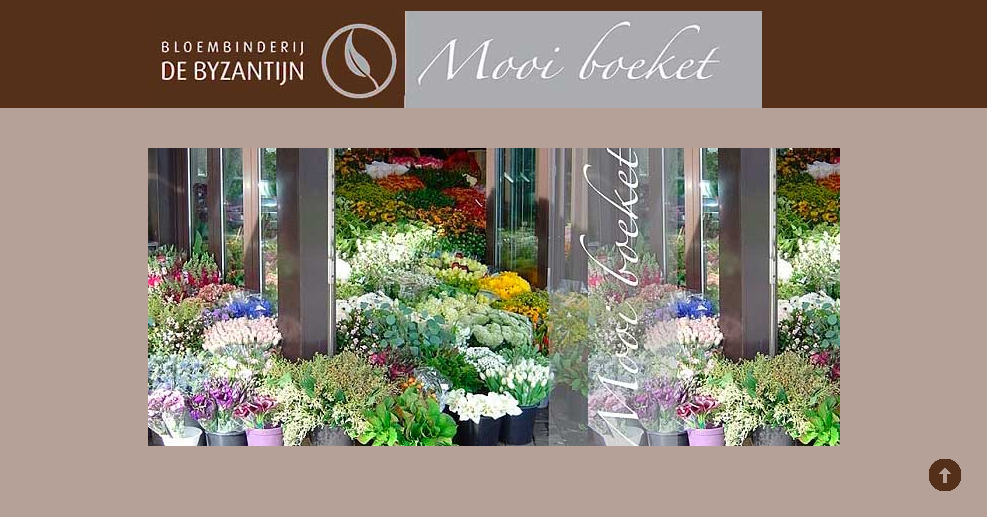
#include <cairo/cairo.h>
#include <math.h>
#include <stddef.h>


static void draw_image(cairo_t *cr, const char *path, double x, double y, double w, double h) {
  cairo_surface_t *image = cairo_image_surface_create_from_png(path);
  cairo_save(cr);
  cairo_set_source_surface(cr, image, x, y);
  cairo_rectangle(cr, x, y, w, h);
  cairo_fill(cr);
  cairo_restore(cr);
  cairo_surface_destroy(image);
}

static void draw(cairo_t *cr) {
  cairo_set_source_rgb(cr, 182 / 255.0, 161 / 255.0, 152 / 255.0);
  cairo_paint(cr);
  cairo_set_source_rgb(cr, 84 / 255.0, 48 / 255.0, 26 / 255.0);
  cairo_rectangle(cr, 0, 0, 987, 108);
  cairo_fill(cr);
  draw_image(cr, "images/1.png", 150, 11, 612, 97);
  draw_image(cr, "images/2.png", 148, 148, 692, 298);
  draw_image(cr, "images/3.png", 929, 459, 32, 32);
}

int main(void) {
  cairo_surface_t *surface = cairo_image_surface_create(CAIRO_FORMAT_RGB24, 987, 517);
  cairo_t *cr = cairo_create(surface);
  cairo_font_options_t *options = cairo_font_options_create();
  cairo_font_options_set_hint_metrics(options, CAIRO_HINT_METRICS_OFF);
  cairo_font_options_set_hint_style(options, CAIRO_HINT_STYLE_NONE);
  cairo_set_font_options(cr, options);
  cairo_set_miter_limit(cr, 4);
  draw(cr);
  cairo_surface_write_to_png(surface, "out.png");
  cairo_font_options_destroy(options);
  cairo_destroy(cr);
  cairo_surface_destroy(surface);
  return 0;
}
